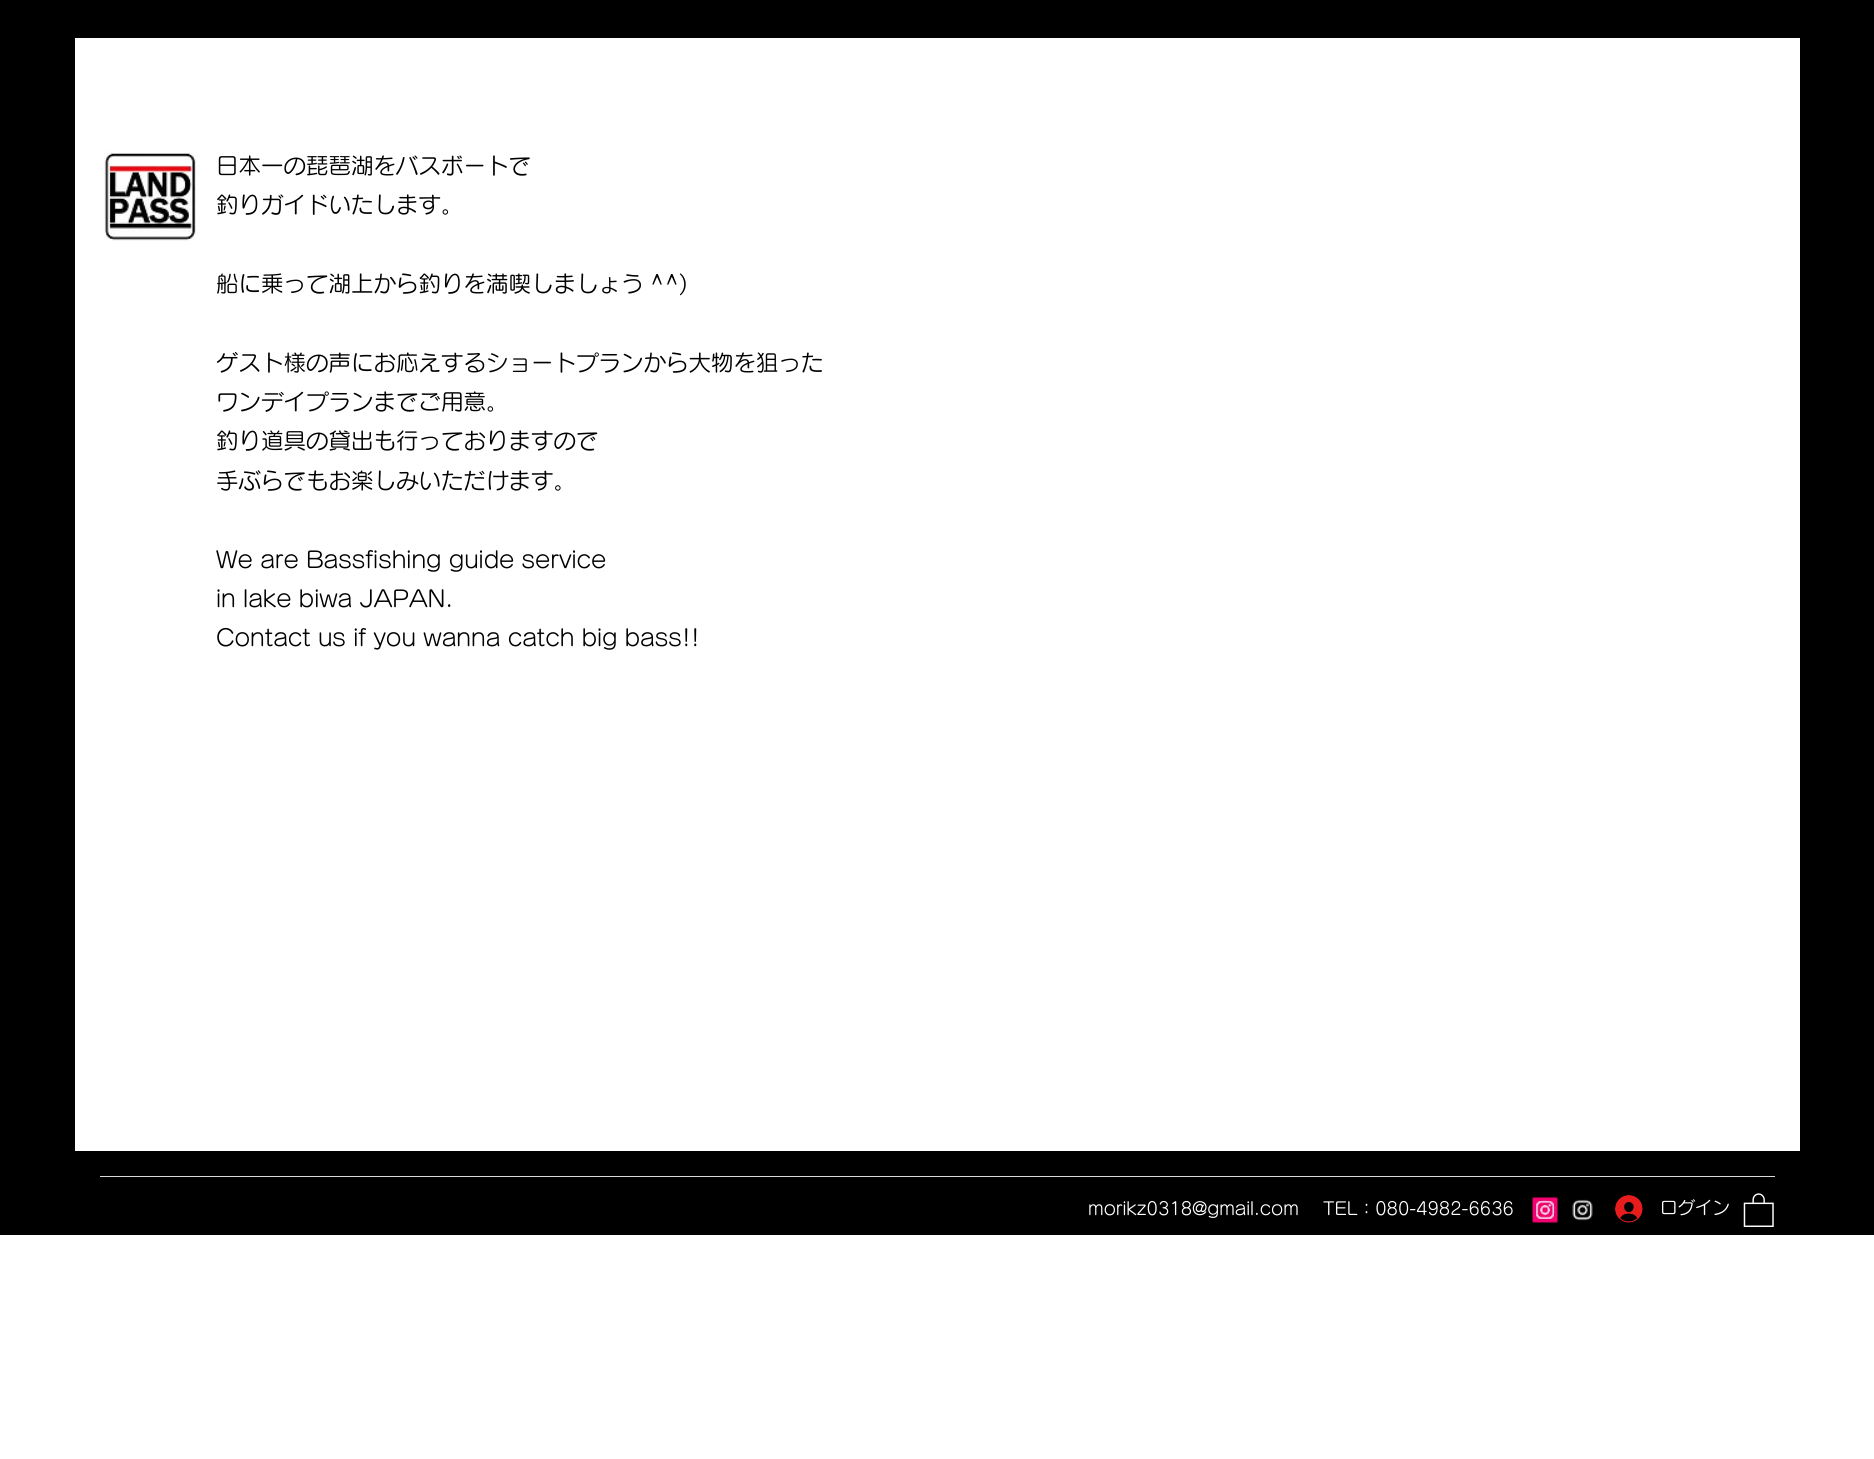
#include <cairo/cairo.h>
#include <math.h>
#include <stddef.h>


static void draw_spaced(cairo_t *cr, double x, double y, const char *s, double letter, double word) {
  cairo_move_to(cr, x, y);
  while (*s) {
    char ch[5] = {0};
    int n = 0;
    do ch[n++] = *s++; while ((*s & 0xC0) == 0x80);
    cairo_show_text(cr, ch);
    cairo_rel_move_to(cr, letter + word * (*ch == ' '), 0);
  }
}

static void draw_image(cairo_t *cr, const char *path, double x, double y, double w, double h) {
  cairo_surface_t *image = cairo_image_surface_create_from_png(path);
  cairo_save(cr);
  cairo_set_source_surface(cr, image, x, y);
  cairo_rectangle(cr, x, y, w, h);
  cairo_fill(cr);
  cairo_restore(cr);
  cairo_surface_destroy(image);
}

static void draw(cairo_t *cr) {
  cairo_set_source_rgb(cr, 1, 1, 1);
  cairo_paint(cr);
  cairo_set_source_rgb(cr, 0, 0, 0);
  cairo_rectangle(cr, 0, 0, 1874, 1235);
  cairo_fill(cr);
  cairo_set_source_rgb(cr, 1, 1, 1);
  cairo_rectangle(cr, 75, 38, 1725, 1113);
  cairo_fill(cr);
  draw_image(cr, "images/1.png", 104, 151, 96, 90);
  cairo_set_source_rgb(cr, 217 / 255.0, 217 / 255.0, 217 / 255.0);
  cairo_rectangle(cr, 100, 1176, 1675, 1);
  cairo_fill(cr);
  draw_image(cr, "images/2.png", 1532, 1197, 26, 26);
  draw_image(cr, "images/3.png", 1572, 1199, 21, 22);
  draw_image(cr, "images/4.png", 1615, 1195, 28, 28);
  draw_image(cr, "images/5.png", 1743, 1193, 31, 34);
  cairo_select_font_face(cr, "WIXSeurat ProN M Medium", CAIRO_FONT_SLANT_NORMAL, CAIRO_FONT_WEIGHT_NORMAL);
  cairo_set_font_size(cr, 22.5);
  cairo_set_source_rgb(cr, 0, 0, 0);
  cairo_move_to(cr, 216, 174);
  cairo_show_text(cr, "日本一の琵琶湖をバスボートで");
  cairo_move_to(cr, 216, 213);
  cairo_show_text(cr, "釣りガイドいたします。");
  draw_spaced(cr, 216, 292, "船に乗って湖上から釣りを満喫しましょう ^^)", 0, -1);
  cairo_move_to(cr, 216, 371);
  cairo_show_text(cr, "ゲスト様の声にお応えするショートプランから大物を狙った");
  cairo_move_to(cr, 216, 410);
  cairo_show_text(cr, "ワンデイプランまでご用意。");
  cairo_move_to(cr, 216, 449);
  cairo_show_text(cr, "釣り道具の貸出も行っておりますので");
  cairo_move_to(cr, 216, 489);
  cairo_show_text(cr, "手ぶらでもお楽しみいただけます。");
  cairo_move_to(cr, 216, 568);
  cairo_show_text(cr, "We are Bassfishing guide service");
  cairo_move_to(cr, 216, 607);
  cairo_show_text(cr, "in lake biwa JAPAN.");
  cairo_move_to(cr, 216, 646);
  cairo_show_text(cr, "Contact us if you wanna catch big bass!!");
  cairo_set_font_size(cr, 17.5);
  cairo_set_source_rgb(cr, 1, 1, 1);
  cairo_move_to(cr, 1088, 1215);
  cairo_show_text(cr, "morikz0318@gmail.com");
  cairo_move_to(cr, 1323, 1215);
  cairo_show_text(cr, "TEL：080-4982-6636");
  cairo_move_to(cr, 1660, 1214);
  cairo_show_text(cr, "ログイン");
}

int main(void) {
  cairo_surface_t *surface = cairo_image_surface_create(CAIRO_FORMAT_RGB24, 1874, 1459);
  cairo_t *cr = cairo_create(surface);
  cairo_font_options_t *options = cairo_font_options_create();
  cairo_font_options_set_hint_metrics(options, CAIRO_HINT_METRICS_OFF);
  cairo_font_options_set_hint_style(options, CAIRO_HINT_STYLE_NONE);
  cairo_set_font_options(cr, options);
  cairo_set_miter_limit(cr, 4);
  draw(cr);
  cairo_surface_write_to_png(surface, "out.png");
  cairo_font_options_destroy(options);
  cairo_destroy(cr);
  cairo_surface_destroy(surface);
  return 0;
}
